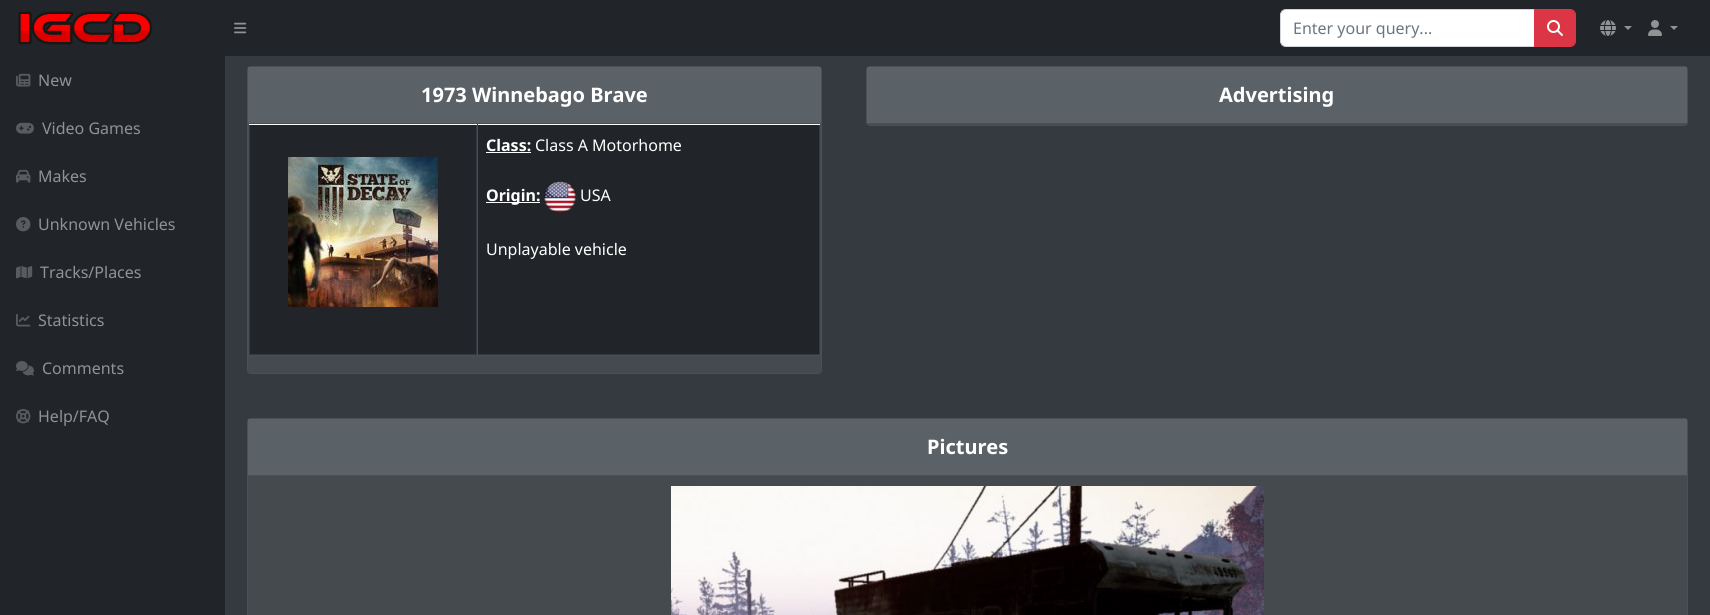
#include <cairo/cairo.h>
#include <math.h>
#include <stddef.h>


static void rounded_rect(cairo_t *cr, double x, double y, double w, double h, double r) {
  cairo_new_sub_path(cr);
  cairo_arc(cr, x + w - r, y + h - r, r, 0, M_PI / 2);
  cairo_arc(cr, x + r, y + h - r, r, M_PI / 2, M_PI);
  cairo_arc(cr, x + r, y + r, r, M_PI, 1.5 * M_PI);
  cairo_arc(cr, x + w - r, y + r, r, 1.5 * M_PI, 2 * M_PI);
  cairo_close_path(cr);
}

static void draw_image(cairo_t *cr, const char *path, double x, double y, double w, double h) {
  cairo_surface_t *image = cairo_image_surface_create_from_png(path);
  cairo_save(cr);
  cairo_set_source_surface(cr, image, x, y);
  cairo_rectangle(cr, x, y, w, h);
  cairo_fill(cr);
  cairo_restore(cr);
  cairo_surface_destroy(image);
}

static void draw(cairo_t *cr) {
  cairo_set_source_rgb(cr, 52 / 255.0, 58 / 255.0, 64 / 255.0);
  cairo_paint(cr);
  cairo_set_source_rgb(cr, 33 / 255.0, 37 / 255.0, 41 / 255.0);
  cairo_rectangle(cr, 0, 0, 1710, 56);
  cairo_fill(cr);
  draw_image(cr, "images/1.png", 18, 11, 135, 34);
  draw_image(cr, "images/2.png", 234, 22, 13, 12);
  cairo_set_source_rgb(cr, 1, 1, 1);
  cairo_new_path(cr);
  cairo_move_to(cr, 1286, 9.5);
  cairo_line_to(cr, 1534.5, 9.5);
  cairo_line_to(cr, 1534.5, 46.5);
  cairo_line_to(cr, 1286, 46.5);
  cairo_curve_to(cr, 1283, 46.5, 1280.5, 44, 1280.5, 41);
  cairo_line_to(cr, 1280.5, 15);
  cairo_curve_to(cr, 1280.5, 12, 1283, 9.5, 1286, 9.5);
  cairo_close_path(cr);
  cairo_fill_preserve(cr);
  cairo_set_source_rgb(cr, 206 / 255.0, 212 / 255.0, 218 / 255.0);
  cairo_set_line_width(cr, 1);
  cairo_stroke(cr);
  cairo_set_source_rgb(cr, 220 / 255.0, 53 / 255.0, 69 / 255.0);
  cairo_new_path(cr);
  cairo_move_to(cr, 1534.5, 9.5);
  cairo_line_to(cr, 1570, 9.5);
  cairo_curve_to(cr, 1573, 9.5, 1575.5, 12, 1575.5, 15);
  cairo_line_to(cr, 1575.5, 41);
  cairo_curve_to(cr, 1575.5, 44, 1573, 46.5, 1570, 46.5);
  cairo_line_to(cr, 1534.5, 46.5);
  cairo_close_path(cr);
  cairo_fill_preserve(cr);
  cairo_stroke(cr);
  draw_image(cr, "images/3.png", 1547, 20, 16, 16);
  draw_image(cr, "images/4.png", 1600, 20, 16, 16);
  cairo_set_source_rgb(cr, 144 / 255.0, 146 / 255.0, 148 / 255.0);
  cairo_new_path(cr);
  cairo_move_to(cr, 1624, 26);
  cairo_line_to(cr, 1632, 26);
  cairo_line_to(cr, 1628, 30);
  cairo_close_path(cr);
  cairo_fill(cr);
  draw_image(cr, "images/5.png", 1648, 20, 14, 16);
  cairo_new_path(cr);
  cairo_move_to(cr, 1670, 26);
  cairo_line_to(cr, 1678, 26);
  cairo_line_to(cr, 1674, 30);
  cairo_close_path(cr);
  cairo_fill(cr);
  cairo_set_source_rgb(cr, 33 / 255.0, 37 / 255.0, 41 / 255.0);
  cairo_rectangle(cr, 0, 56, 225, 559);
  cairo_fill(cr);
  draw_image(cr, "images/6.png", 16, 73, 15, 14);
  draw_image(cr, "images/7.png", 16, 122, 18, 12);
  draw_image(cr, "images/8.png", 16, 169, 15, 14);
  draw_image(cr, "images/9.png", 16, 217, 15, 15);
  draw_image(cr, "images/10.png", 16, 266, 17, 13);
  draw_image(cr, "images/11.png", 16, 314, 15, 13);
  draw_image(cr, "images/12.png", 16, 361, 18, 15);
  draw_image(cr, "images/13.png", 16, 409, 15, 15);
  rounded_rect(cr, 247.5, 66.5, 574, 307, 3.5);
  cairo_set_source_rgb(cr, 73 / 255.0, 80 / 255.0, 87 / 255.0);
  cairo_stroke(cr);
  cairo_set_source_rgb(cr, 90 / 255.0, 98 / 255.0, 104 / 255.0);
  cairo_rectangle(cr, 248, 67, 573, 56);
  cairo_fill(cr);
  cairo_set_source_rgb(cr, 73 / 255.0, 80 / 255.0, 87 / 255.0);
  cairo_rectangle(cr, 248, 123, 573, 1);
  cairo_fill(cr);
  cairo_set_source_rgb(cr, 69 / 255.0, 74 / 255.0, 79 / 255.0);
  cairo_rectangle(cr, 248, 357, 573, 16);
  cairo_fill(cr);
  cairo_set_source_rgb(cr, 1, 1, 1);
  cairo_rectangle(cr, 248, 124, 573, 1);
  cairo_fill(cr);
  cairo_set_source_rgb(cr, 33 / 255.0, 37 / 255.0, 41 / 255.0);
  cairo_rectangle(cr, 250, 125, 226, 229);
  cairo_fill(cr);
  cairo_set_source_rgb(cr, 69 / 255.0, 77 / 255.0, 85 / 255.0);
  cairo_rectangle(cr, 248, 124, 1, 233);
  cairo_fill(cr);
  draw_image(cr, "images/14.png", 288, 157, 150, 150);
  cairo_set_source_rgb(cr, 33 / 255.0, 37 / 255.0, 41 / 255.0);
  cairo_rectangle(cr, 478, 125, 341, 229);
  cairo_fill(cr);
  cairo_set_source_rgb(cr, 69 / 255.0, 77 / 255.0, 85 / 255.0);
  cairo_rectangle(cr, 820, 124, 1, 233);
  cairo_fill(cr);
  cairo_rectangle(cr, 477, 124, 1, 233);
  cairo_fill(cr);
  cairo_rectangle(cr, 248, 355, 573, 2);
  cairo_fill(cr);
  cairo_set_source_rgb(cr, 1, 1, 1);
  cairo_rectangle(cr, 486, 152, 45, 1);
  cairo_fill(cr);
  cairo_rectangle(cr, 486, 202, 54, 1);
  cairo_fill(cr);
  draw_image(cr, "images/15.png", 544, 181, 32, 32);
  rounded_rect(cr, 866.5, 66.5, 821, 59, 3.5);
  cairo_set_source_rgb(cr, 73 / 255.0, 80 / 255.0, 87 / 255.0);
  cairo_stroke(cr);
  cairo_set_source_rgb(cr, 90 / 255.0, 98 / 255.0, 104 / 255.0);
  cairo_rectangle(cr, 867, 67, 820, 56);
  cairo_fill(cr);
  cairo_set_source_rgb(cr, 73 / 255.0, 80 / 255.0, 87 / 255.0);
  cairo_rectangle(cr, 867, 123, 820, 1);
  cairo_fill(cr);
  cairo_set_source_rgb(cr, 69 / 255.0, 74 / 255.0, 79 / 255.0);
  cairo_rectangle(cr, 867, 124, 820, 1);
  cairo_fill(cr);
  rounded_rect(cr, 247.5, 418.5, 1440, 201, 3.5);
  cairo_fill_preserve(cr);
  cairo_set_source_rgb(cr, 73 / 255.0, 80 / 255.0, 87 / 255.0);
  cairo_stroke(cr);
  cairo_set_source_rgb(cr, 90 / 255.0, 98 / 255.0, 104 / 255.0);
  cairo_rectangle(cr, 248, 419, 1439, 56);
  cairo_fill(cr);
  cairo_set_source_rgb(cr, 73 / 255.0, 80 / 255.0, 87 / 255.0);
  cairo_rectangle(cr, 248, 475, 1439, 1);
  cairo_fill(cr);
  draw_image(cr, "images/16.png", 671, 486, 593, 129);
  cairo_select_font_face(cr, "Noto Sans", CAIRO_FONT_SLANT_NORMAL, CAIRO_FONT_WEIGHT_NORMAL);
  cairo_set_font_size(cr, 16);
  cairo_set_source_rgb(cr, 108 / 255.0, 117 / 255.0, 125 / 255.0);
  cairo_move_to(cr, 1293, 34);
  cairo_show_text(cr, "Enter your query...");
  cairo_set_source_rgb(cr, 144 / 255.0, 146 / 255.0, 148 / 255.0);
  cairo_move_to(cr, 38, 86);
  cairo_show_text(cr, "New");
  cairo_move_to(cr, 42, 134);
  cairo_show_text(cr, "Video Games");
  cairo_move_to(cr, 38, 182);
  cairo_show_text(cr, "Makes");
  cairo_move_to(cr, 38, 230);
  cairo_show_text(cr, "Unknown Vehicles");
  cairo_move_to(cr, 40, 278);
  cairo_show_text(cr, "Tracks/Places");
  cairo_move_to(cr, 38, 326);
  cairo_show_text(cr, "Statistics");
  cairo_move_to(cr, 42, 374);
  cairo_show_text(cr, "Comments");
  cairo_move_to(cr, 38, 422);
  cairo_show_text(cr, "Help/FAQ");
  cairo_select_font_face(cr, "Noto Sans", CAIRO_FONT_SLANT_NORMAL, CAIRO_FONT_WEIGHT_BOLD);
  cairo_set_font_size(cr, 20);
  cairo_set_source_rgb(cr, 1, 1, 1);
  cairo_move_to(cr, 421, 102);
  cairo_show_text(cr, "1973 Winnebago Brave");
  cairo_set_font_size(cr, 16);
  cairo_move_to(cr, 486, 151);
  cairo_show_text(cr, "Class:");
  cairo_select_font_face(cr, "Noto Sans", CAIRO_FONT_SLANT_NORMAL, CAIRO_FONT_WEIGHT_NORMAL);
  cairo_move_to(cr, 535, 151);
  cairo_show_text(cr, "Class A Motorhome");
  cairo_select_font_face(cr, "Noto Sans", CAIRO_FONT_SLANT_NORMAL, CAIRO_FONT_WEIGHT_BOLD);
  cairo_move_to(cr, 486, 201);
  cairo_show_text(cr, "Origin:");
  cairo_select_font_face(cr, "Noto Sans", CAIRO_FONT_SLANT_NORMAL, CAIRO_FONT_WEIGHT_NORMAL);
  cairo_move_to(cr, 580, 201);
  cairo_show_text(cr, "USA");
  cairo_move_to(cr, 486, 255);
  cairo_show_text(cr, "Unplayable vehicle");
  cairo_select_font_face(cr, "Noto Sans", CAIRO_FONT_SLANT_NORMAL, CAIRO_FONT_WEIGHT_BOLD);
  cairo_set_font_size(cr, 20);
  cairo_move_to(cr, 1219, 102);
  cairo_show_text(cr, "Advertising");
  cairo_move_to(cr, 927, 454);
  cairo_show_text(cr, "Pictures");
}

int main(void) {
  cairo_surface_t *surface = cairo_image_surface_create(CAIRO_FORMAT_RGB24, 1710, 615);
  cairo_t *cr = cairo_create(surface);
  cairo_font_options_t *options = cairo_font_options_create();
  cairo_font_options_set_hint_metrics(options, CAIRO_HINT_METRICS_OFF);
  cairo_font_options_set_hint_style(options, CAIRO_HINT_STYLE_NONE);
  cairo_set_font_options(cr, options);
  cairo_set_miter_limit(cr, 4);
  draw(cr);
  cairo_surface_write_to_png(surface, "out.png");
  cairo_font_options_destroy(options);
  cairo_destroy(cr);
  cairo_surface_destroy(surface);
  return 0;
}
